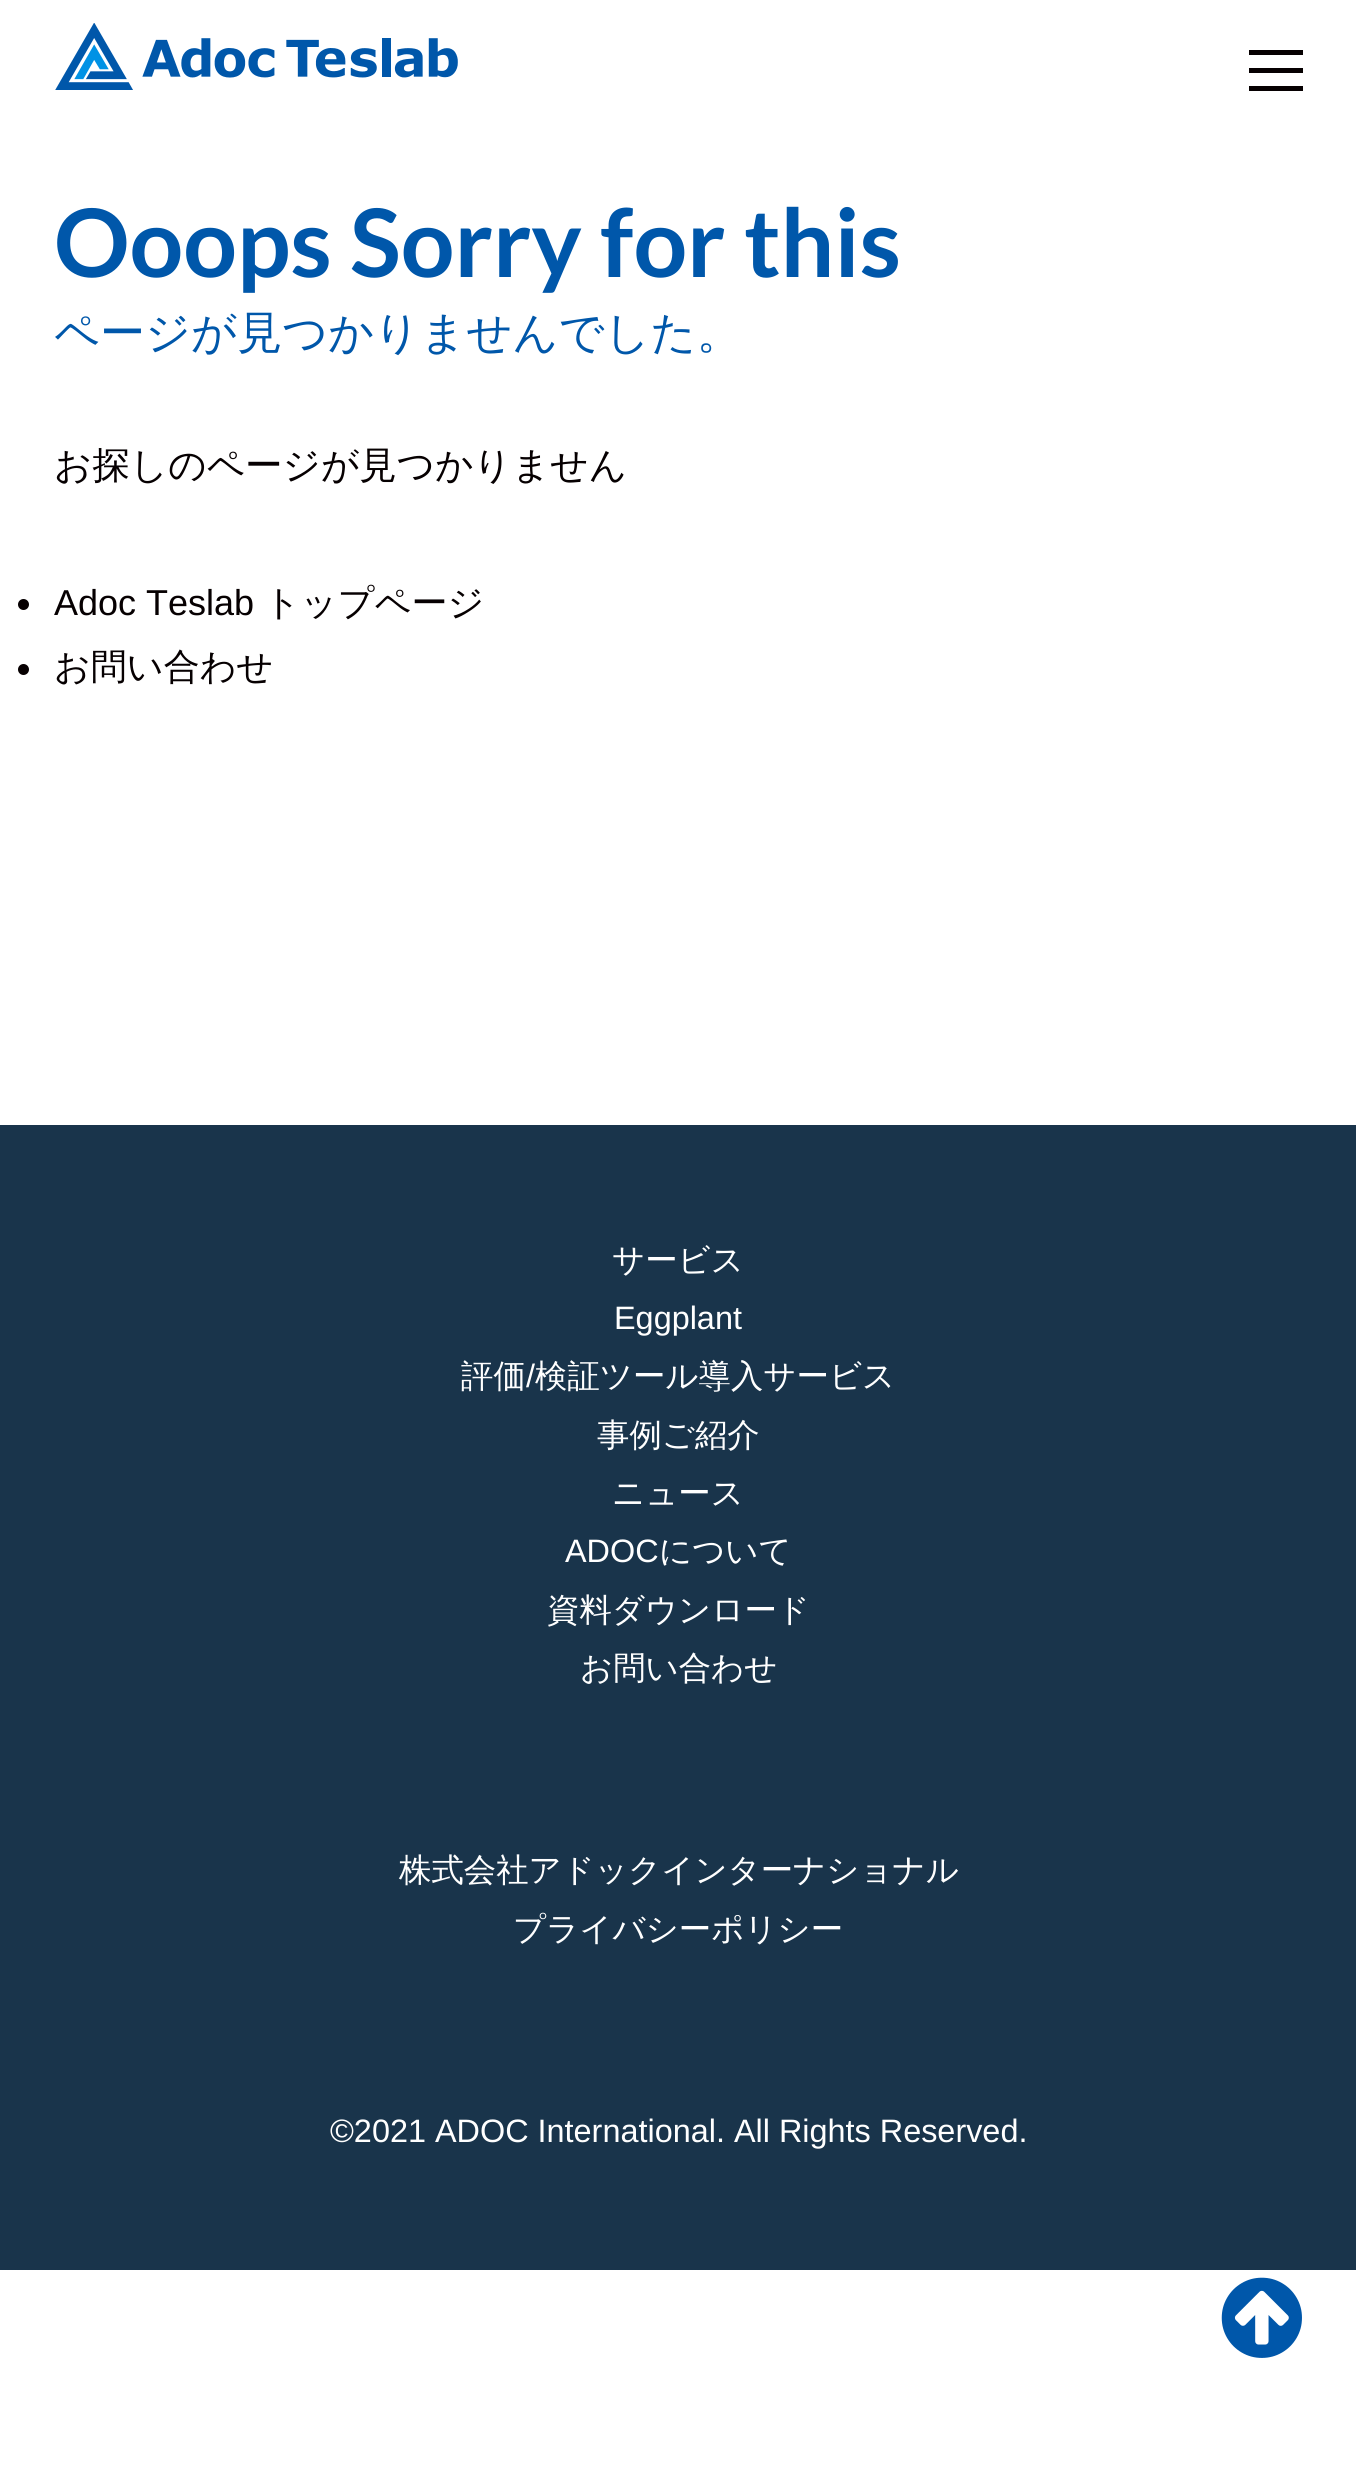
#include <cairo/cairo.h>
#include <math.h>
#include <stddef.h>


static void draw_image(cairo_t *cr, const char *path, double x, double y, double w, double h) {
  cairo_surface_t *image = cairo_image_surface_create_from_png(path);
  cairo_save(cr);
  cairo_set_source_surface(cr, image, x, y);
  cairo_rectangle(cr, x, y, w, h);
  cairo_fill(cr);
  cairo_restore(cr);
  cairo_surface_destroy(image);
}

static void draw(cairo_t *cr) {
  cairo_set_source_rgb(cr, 1, 1, 1);
  cairo_paint(cr);
  draw_image(cr, "images/1.png", 55, 23, 403, 67);
  cairo_set_source_rgb(cr, 6 / 255.0, 0, 1 / 255.0);
  cairo_rectangle(cr, 1249, 50, 54, 5);
  cairo_fill(cr);
  cairo_rectangle(cr, 1249, 68, 54, 5);
  cairo_fill(cr);
  cairo_rectangle(cr, 1249, 86, 54, 5);
  cairo_fill(cr);
  cairo_arc(cr, 23.5, 604.5, 5.5, 0, 2 * M_PI);
  cairo_fill(cr);
  cairo_arc(cr, 23.5, 669.5, 5.5, 0, 2 * M_PI);
  cairo_fill(cr);
  cairo_set_source_rgb(cr, 25 / 255.0, 52 / 255.0, 75 / 255.0);
  cairo_rectangle(cr, 0, 1125, 1356, 1145);
  cairo_fill(cr);
  draw_image(cr, "images/2.png", 1221, 2277, 81, 81);
  cairo_select_font_face(cr, "Lato", CAIRO_FONT_SLANT_NORMAL, CAIRO_FONT_WEIGHT_BOLD);
  cairo_set_font_size(cr, 94.5);
  cairo_set_source_rgb(cr, 0, 87 / 255.0, 170 / 255.0);
  cairo_move_to(cr, 54, 277);
  cairo_show_text(cr, "Ooops Sorry for this");
  cairo_select_font_face(cr, "WenQuanYi Zen Hei Medium", CAIRO_FONT_SLANT_NORMAL, CAIRO_FONT_WEIGHT_NORMAL);
  cairo_set_font_size(cr, 45);
  cairo_move_to(cr, 54, 348);
  cairo_show_text(cr, "ページが見つかりませんでした。");
  cairo_set_font_size(cr, 37.5);
  cairo_set_source_rgb(cr, 6 / 255.0, 0, 1 / 255.0);
  cairo_move_to(cr, 54, 478);
  cairo_show_text(cr, "お探しのページが見つかりません");
  cairo_select_font_face(cr, "Liberation Sans", CAIRO_FONT_SLANT_NORMAL, CAIRO_FONT_WEIGHT_NORMAL);
  cairo_set_font_size(cr, 36);
  cairo_move_to(cr, 54, 615);
  cairo_show_text(cr, "Adoc Teslab");
  cairo_select_font_face(cr, "WenQuanYi Zen Hei Medium", CAIRO_FONT_SLANT_NORMAL, CAIRO_FONT_WEIGHT_NORMAL);
  cairo_move_to(cr, 264, 615);
  cairo_show_text(cr, "トップページ");
  cairo_move_to(cr, 54, 679);
  cairo_show_text(cr, "お問い合わせ");
  cairo_set_font_size(cr, 32.4);
  cairo_set_source_rgb(cr, 1, 1, 1);
  cairo_move_to(cr, 612, 1271);
  cairo_show_text(cr, "サービス");
  cairo_select_font_face(cr, "Liberation Sans", CAIRO_FONT_SLANT_NORMAL, CAIRO_FONT_WEIGHT_NORMAL);
  cairo_move_to(cr, 614, 1329);
  cairo_show_text(cr, "Eggplant");
  cairo_select_font_face(cr, "WenQuanYi Zen Hei Medium", CAIRO_FONT_SLANT_NORMAL, CAIRO_FONT_WEIGHT_NORMAL);
  cairo_move_to(cr, 461, 1387);
  cairo_show_text(cr, "評価");
  cairo_select_font_face(cr, "Liberation Sans", CAIRO_FONT_SLANT_NORMAL, CAIRO_FONT_WEIGHT_NORMAL);
  cairo_move_to(cr, 526, 1387);
  cairo_show_text(cr, "/");
  cairo_select_font_face(cr, "WenQuanYi Zen Hei Medium", CAIRO_FONT_SLANT_NORMAL, CAIRO_FONT_WEIGHT_NORMAL);
  cairo_move_to(cr, 535, 1387);
  cairo_show_text(cr, "検証ツール導入サービス");
  cairo_move_to(cr, 597, 1446);
  cairo_show_text(cr, "事例ご紹介");
  cairo_move_to(cr, 612, 1504);
  cairo_show_text(cr, "ニュース");
  cairo_select_font_face(cr, "Liberation Sans", CAIRO_FONT_SLANT_NORMAL, CAIRO_FONT_WEIGHT_NORMAL);
  cairo_move_to(cr, 565, 1562);
  cairo_show_text(cr, "ADOC");
  cairo_select_font_face(cr, "WenQuanYi Zen Hei Medium", CAIRO_FONT_SLANT_NORMAL, CAIRO_FONT_WEIGHT_NORMAL);
  cairo_move_to(cr, 659, 1562);
  cairo_show_text(cr, "について");
  cairo_move_to(cr, 547, 1621);
  cairo_show_text(cr, "資料ダウンロード");
  cairo_move_to(cr, 580, 1679);
  cairo_show_text(cr, "お問い合わせ");
  cairo_move_to(cr, 399, 1881);
  cairo_show_text(cr, "株式会社アドックインターナショナル");
  cairo_move_to(cr, 513, 1940);
  cairo_show_text(cr, "プライバシーポリシー");
  cairo_select_font_face(cr, "Liberation Sans", CAIRO_FONT_SLANT_NORMAL, CAIRO_FONT_WEIGHT_NORMAL);
  cairo_move_to(cr, 330, 2142);
  cairo_show_text(cr, "©2021 ADOC International. All Rights Reserved.");
}

int main(void) {
  cairo_surface_t *surface = cairo_image_surface_create(CAIRO_FORMAT_RGB24, 1356, 2471);
  cairo_t *cr = cairo_create(surface);
  cairo_font_options_t *options = cairo_font_options_create();
  cairo_font_options_set_hint_metrics(options, CAIRO_HINT_METRICS_OFF);
  cairo_font_options_set_hint_style(options, CAIRO_HINT_STYLE_NONE);
  cairo_set_font_options(cr, options);
  cairo_set_miter_limit(cr, 4);
  draw(cr);
  cairo_surface_write_to_png(surface, "out.png");
  cairo_font_options_destroy(options);
  cairo_destroy(cr);
  cairo_surface_destroy(surface);
  return 0;
}
